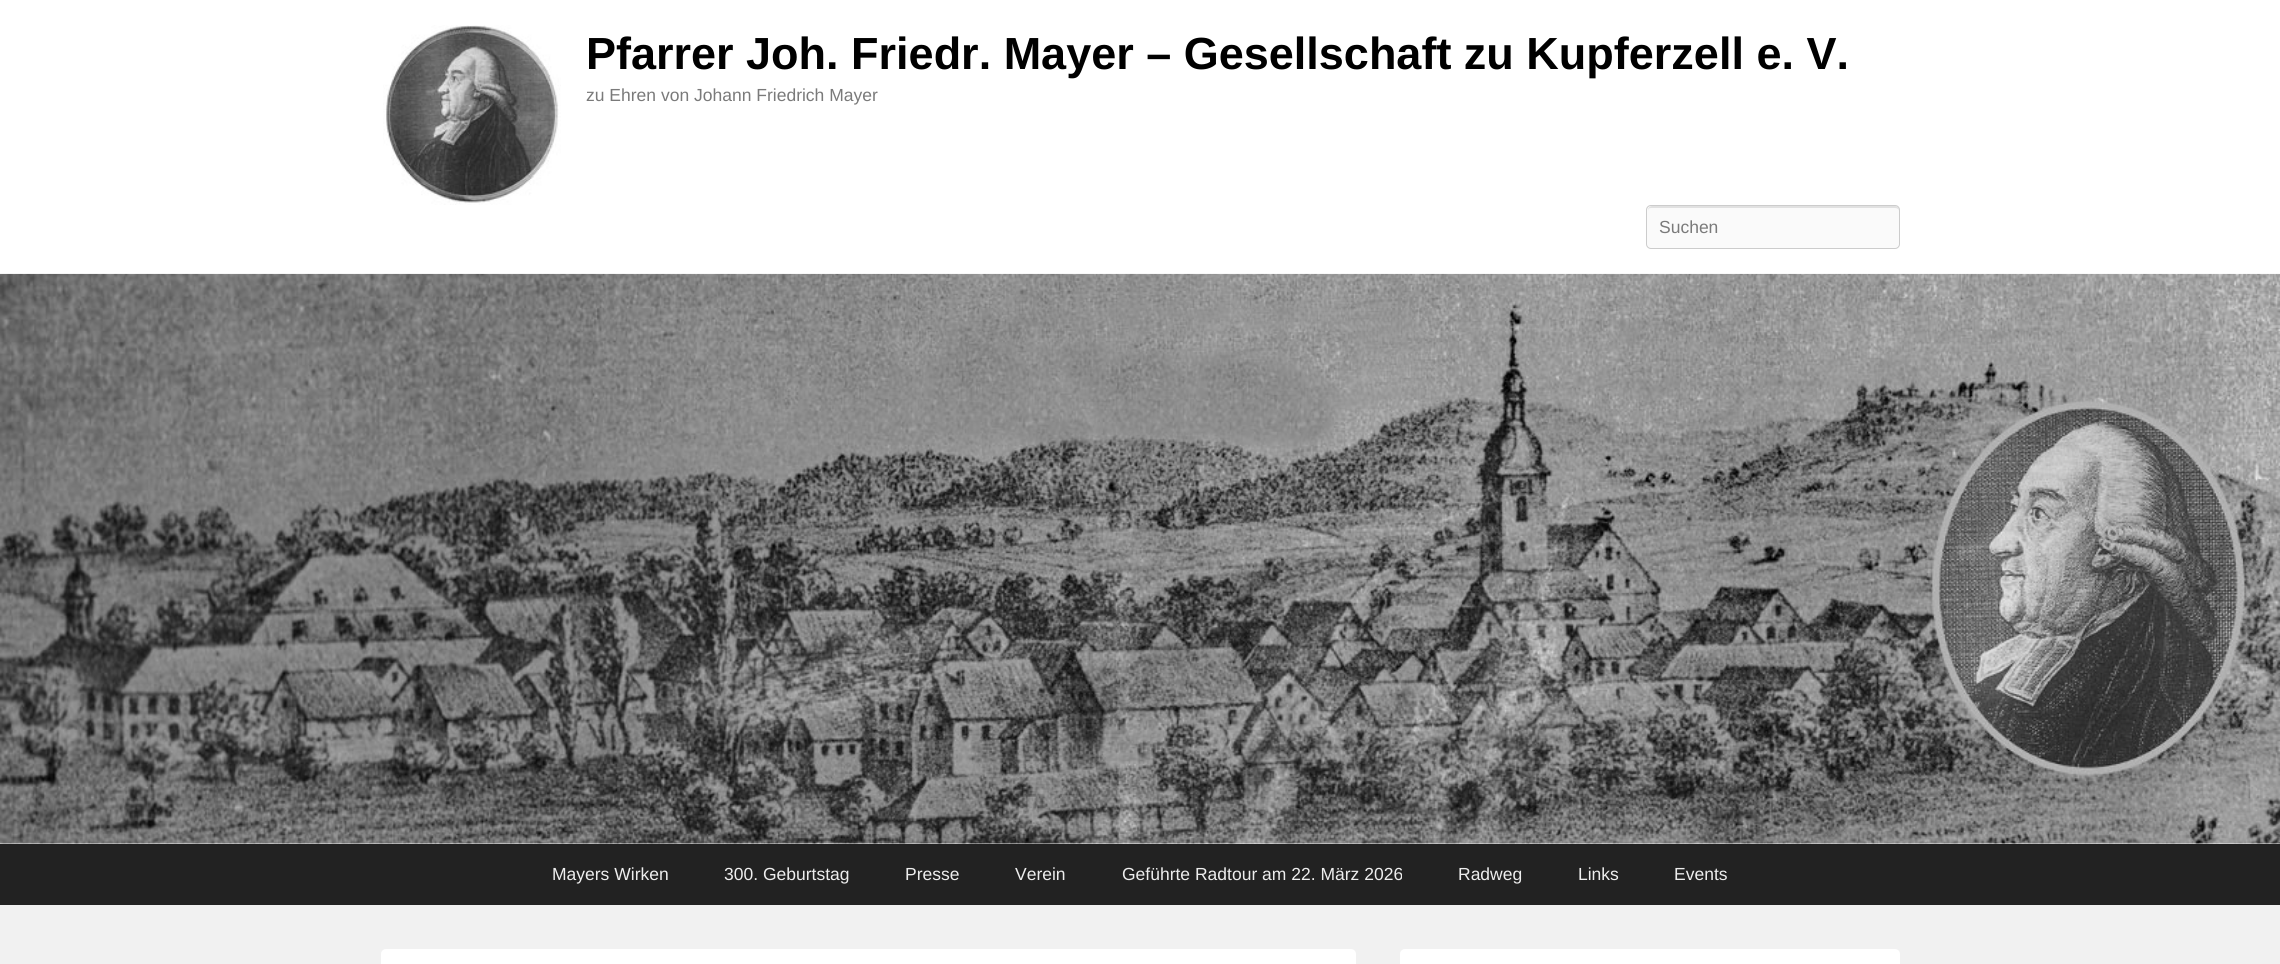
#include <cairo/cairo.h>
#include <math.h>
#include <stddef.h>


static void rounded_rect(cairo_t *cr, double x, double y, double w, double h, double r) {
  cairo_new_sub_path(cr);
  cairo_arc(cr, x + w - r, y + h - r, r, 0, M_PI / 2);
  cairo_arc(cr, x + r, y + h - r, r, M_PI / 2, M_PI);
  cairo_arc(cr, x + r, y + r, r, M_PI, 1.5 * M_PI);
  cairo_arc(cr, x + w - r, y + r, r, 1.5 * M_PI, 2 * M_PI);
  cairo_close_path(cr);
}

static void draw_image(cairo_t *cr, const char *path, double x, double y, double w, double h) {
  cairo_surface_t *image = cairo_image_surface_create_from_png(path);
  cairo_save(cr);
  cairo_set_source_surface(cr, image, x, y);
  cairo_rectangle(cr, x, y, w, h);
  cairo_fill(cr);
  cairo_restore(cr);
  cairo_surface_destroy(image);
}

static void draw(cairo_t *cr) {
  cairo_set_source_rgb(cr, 241 / 255.0, 241 / 255.0, 241 / 255.0);
  cairo_paint(cr);
  cairo_set_source_rgb(cr, 1, 1, 1);
  cairo_rectangle(cr, 0, 0, 2280, 274);
  cairo_fill(cr);
  draw_image(cr, "images/1.png", 383, 25, 178, 180);
  cairo_set_source_rgb(cr, 250 / 255.0, 250 / 255.0, 250 / 255.0);
  rounded_rect(cr, 1646, 205, 254, 44, 5);
  cairo_fill(cr);
  cairo_set_source_rgb(cr, 225 / 255.0, 225 / 255.0, 225 / 255.0);
  cairo_new_path(cr);
  cairo_move_to(cr, 1651, 208);
  cairo_line_to(cr, 1895, 208);
  cairo_curve_to(cr, 1897, 208, 1899, 209, 1899, 211);
  cairo_line_to(cr, 1899, 210);
  cairo_curve_to(cr, 1899, 208, 1897, 206, 1895, 206);
  cairo_line_to(cr, 1652, 206);
  cairo_curve_to(cr, 1650, 206, 1648, 208, 1648, 210);
  cairo_line_to(cr, 1648, 211);
  cairo_curve_to(cr, 1648, 209, 1649, 208, 1651, 208);
  cairo_close_path(cr);
  cairo_fill(cr);
  rounded_rect(cr, 1646.5, 205.5, 253, 43, 4.5);
  cairo_set_source_rgb(cr, 204 / 255.0, 204 / 255.0, 204 / 255.0);
  cairo_set_line_width(cr, 1);
  cairo_stroke(cr);
  cairo_set_source_rgb(cr, 1, 1, 1);
  cairo_rectangle(cr, 0, 843, 2280, 1);
  cairo_fill(cr);
  draw_image(cr, "images/2.png", 0, 273, 2280, 571);
  cairo_set_source_rgb(cr, 34 / 255.0, 34 / 255.0, 34 / 255.0);
  cairo_rectangle(cr, 0, 844, 2280, 61);
  cairo_fill(cr);
  cairo_set_source_rgb(cr, 1, 1, 1);
  rounded_rect(cr, 381, 949, 975, 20, 5);
  cairo_fill(cr);
  rounded_rect(cr, 1400, 949, 500, 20, 5);
  cairo_fill(cr);
  cairo_select_font_face(cr, "Liberation Sans", CAIRO_FONT_SLANT_NORMAL, CAIRO_FONT_WEIGHT_BOLD);
  cairo_set_font_size(cr, 45);
  cairo_set_source_rgb(cr, 0, 0, 0);
  cairo_move_to(cr, 586, 69);
  cairo_show_text(cr, "Pfarrer Joh. Friedr. Mayer – Gesellschaft zu Kupferzell e. V.");
  cairo_select_font_face(cr, "Liberation Sans", CAIRO_FONT_SLANT_NORMAL, CAIRO_FONT_WEIGHT_NORMAL);
  cairo_set_font_size(cr, 17.5);
  cairo_set_source_rgb(cr, 122 / 255.0, 122 / 255.0, 122 / 255.0);
  cairo_move_to(cr, 586, 101);
  cairo_show_text(cr, "zu Ehren von Johann Friedrich Mayer");
  cairo_move_to(cr, 1659, 233);
  cairo_show_text(cr, "Suchen");
  cairo_set_source_rgb(cr, 238 / 255.0, 238 / 255.0, 238 / 255.0);
  cairo_move_to(cr, 552, 880);
  cairo_show_text(cr, "Mayers Wirken");
  cairo_move_to(cr, 724, 880);
  cairo_show_text(cr, "300. Geburtstag");
  cairo_move_to(cr, 905, 880);
  cairo_show_text(cr, "Presse");
  cairo_move_to(cr, 1015, 880);
  cairo_show_text(cr, "Verein");
  cairo_move_to(cr, 1122, 880);
  cairo_show_text(cr, "Geführte Radtour am 22. März 2026");
  cairo_move_to(cr, 1458, 880);
  cairo_show_text(cr, "Radweg");
  cairo_move_to(cr, 1578, 880);
  cairo_show_text(cr, "Links");
  cairo_move_to(cr, 1674, 880);
  cairo_show_text(cr, "Events");
}

int main(void) {
  cairo_surface_t *surface = cairo_image_surface_create(CAIRO_FORMAT_RGB24, 2280, 964);
  cairo_t *cr = cairo_create(surface);
  cairo_font_options_t *options = cairo_font_options_create();
  cairo_font_options_set_hint_metrics(options, CAIRO_HINT_METRICS_OFF);
  cairo_font_options_set_hint_style(options, CAIRO_HINT_STYLE_NONE);
  cairo_set_font_options(cr, options);
  cairo_set_miter_limit(cr, 4);
  draw(cr);
  cairo_surface_write_to_png(surface, "out.png");
  cairo_font_options_destroy(options);
  cairo_destroy(cr);
  cairo_surface_destroy(surface);
  return 0;
}
